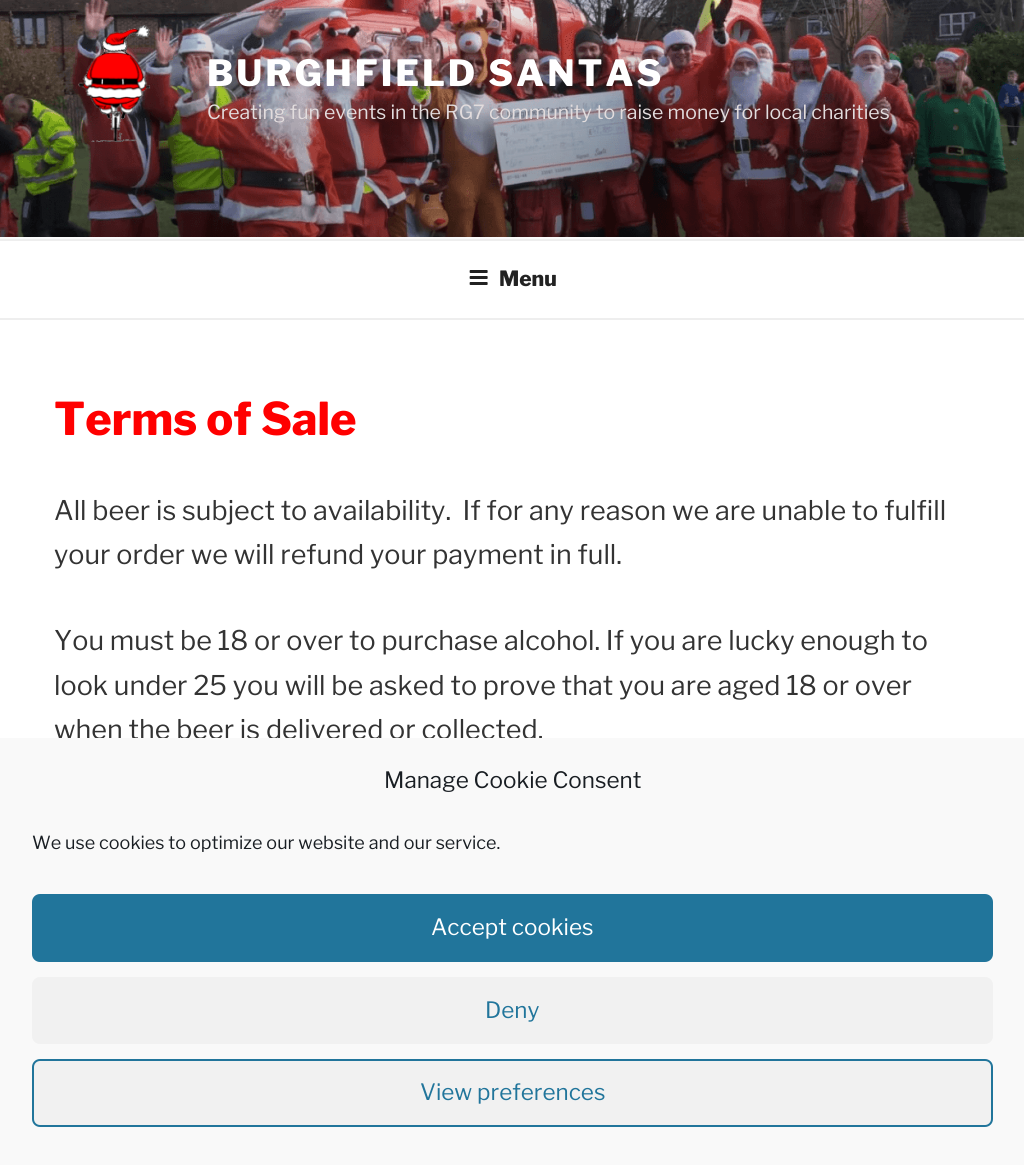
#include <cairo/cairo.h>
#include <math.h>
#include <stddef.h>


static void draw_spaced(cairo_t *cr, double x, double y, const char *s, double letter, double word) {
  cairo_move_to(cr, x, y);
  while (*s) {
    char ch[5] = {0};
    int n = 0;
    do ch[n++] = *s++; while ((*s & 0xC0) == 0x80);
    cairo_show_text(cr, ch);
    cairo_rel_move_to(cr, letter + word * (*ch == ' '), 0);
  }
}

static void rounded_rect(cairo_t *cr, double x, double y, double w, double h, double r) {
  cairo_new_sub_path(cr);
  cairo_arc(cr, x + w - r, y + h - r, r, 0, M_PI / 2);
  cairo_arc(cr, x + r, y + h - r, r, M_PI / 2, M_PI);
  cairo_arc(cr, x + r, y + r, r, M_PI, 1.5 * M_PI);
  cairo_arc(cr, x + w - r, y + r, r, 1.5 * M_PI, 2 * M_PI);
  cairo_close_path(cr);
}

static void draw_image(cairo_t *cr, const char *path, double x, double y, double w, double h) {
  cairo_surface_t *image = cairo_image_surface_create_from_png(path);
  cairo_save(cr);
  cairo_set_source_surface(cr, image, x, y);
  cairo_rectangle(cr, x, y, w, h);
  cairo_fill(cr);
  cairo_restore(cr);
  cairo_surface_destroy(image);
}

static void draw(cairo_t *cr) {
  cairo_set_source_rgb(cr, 1, 1, 1);
  cairo_paint(cr);
  cairo_set_source_rgb(cr, 250 / 255.0, 250 / 255.0, 250 / 255.0);
  cairo_rectangle(cr, 0, 237, 1024, 2);
  cairo_fill(cr);
  draw_image(cr, "images/1.png", 0, 0, 1024, 237);
  draw_image(cr, "images/2.png", 78, 25, 72, 118);
  cairo_set_source_rgb(cr, 238 / 255.0, 238 / 255.0, 238 / 255.0);
  cairo_rectangle(cr, 0, 239, 1024, 2);
  cairo_fill(cr);
  cairo_rectangle(cr, 0, 318, 1024, 2);
  cairo_fill(cr);
  draw_image(cr, "images/3.png", 469, 270, 19, 15);
  cairo_select_font_face(cr, "Libre Franklin Thin", CAIRO_FONT_SLANT_NORMAL, CAIRO_FONT_WEIGHT_NORMAL);
  cairo_set_font_size(cr, 36);
  cairo_set_source_rgb(cr, 1, 1, 1);
  draw_spaced(cr, 207, 86, "BURGHFIELD SANTAS", 2.9, 0);
  cairo_select_font_face(cr, "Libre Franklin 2 Thin", CAIRO_FONT_SLANT_NORMAL, CAIRO_FONT_WEIGHT_NORMAL);
  cairo_set_font_size(cr, 19.5);
  cairo_set_source_rgb(cr, 226 / 255.0, 220 / 255.0, 221 / 255.0);
  cairo_move_to(cr, 207, 119);
  cairo_show_text(cr, "Creating fun events in the RG7 community to raise money for local charities");
  cairo_select_font_face(cr, "Libre Franklin Thin", CAIRO_FONT_SLANT_NORMAL, CAIRO_FONT_WEIGHT_NORMAL);
  cairo_set_font_size(cr, 21);
  cairo_set_source_rgb(cr, 34 / 255.0, 34 / 255.0, 34 / 255.0);
  cairo_move_to(cr, 499, 286);
  cairo_show_text(cr, "Menu");
  cairo_set_font_size(cr, 45);
  cairo_set_source_rgb(cr, 1, 0, 0);
  cairo_move_to(cr, 54, 435);
  cairo_show_text(cr, "Terms of Sale");
  cairo_select_font_face(cr, "Libre Franklin 2 Thin", CAIRO_FONT_SLANT_NORMAL, CAIRO_FONT_WEIGHT_NORMAL);
  cairo_set_font_size(cr, 27);
  cairo_set_source_rgb(cr, 51 / 255.0, 51 / 255.0, 51 / 255.0);
  cairo_move_to(cr, 54, 520);
  cairo_show_text(cr, "All beer is subject to availability.  If for any reason we are unable to fulfill");
  cairo_move_to(cr, 54, 564);
  cairo_show_text(cr, "your order we will refund your payment in full.");
  cairo_move_to(cr, 54, 650);
  cairo_show_text(cr, "You must be 18 or over to purchase alcohol. If you are lucky enough to");
  cairo_move_to(cr, 54, 695);
  cairo_show_text(cr, "look under 25 you will be asked to prove that you are aged 18 or over");
  cairo_move_to(cr, 54, 739);
  cairo_show_text(cr, "when the beer is delivered or collected.");
  cairo_set_source_rgb(cr, 249 / 255.0, 249 / 255.0, 249 / 255.0);
  cairo_rectangle(cr, 0, 738, 1024, 427);
  cairo_fill(cr);
  cairo_set_font_size(cr, 22.5);
  cairo_set_source_rgb(cr, 25 / 255.0, 30 / 255.0, 35 / 255.0);
  cairo_move_to(cr, 384, 788);
  cairo_show_text(cr, "Manage Cookie Consent");
  cairo_set_font_size(cr, 18);
  cairo_move_to(cr, 32, 849);
  cairo_show_text(cr, "We use cookies to optimize our website and our service.");
  cairo_set_source_rgb(cr, 33 / 255.0, 117 / 255.0, 155 / 255.0);
  rounded_rect(cr, 33, 895, 959, 66, 7);
  cairo_fill_preserve(cr);
  cairo_stroke(cr);
  cairo_set_font_size(cr, 22.5);
  cairo_set_source_rgb(cr, 1, 1, 1);
  cairo_move_to(cr, 431, 935);
  cairo_show_text(cr, "Accept cookies");
  cairo_set_source_rgb(cr, 241 / 255.0, 241 / 255.0, 241 / 255.0);
  rounded_rect(cr, 32, 977, 961, 67, 8);
  cairo_fill(cr);
  cairo_set_source_rgb(cr, 33 / 255.0, 117 / 255.0, 155 / 255.0);
  cairo_move_to(cr, 485, 1018);
  cairo_show_text(cr, "Deny");
  cairo_set_source_rgb(cr, 241 / 255.0, 241 / 255.0, 241 / 255.0);
  rounded_rect(cr, 33, 1060, 959, 66, 7);
  cairo_fill_preserve(cr);
  cairo_set_source_rgb(cr, 33 / 255.0, 117 / 255.0, 155 / 255.0);
  cairo_stroke(cr);
  cairo_move_to(cr, 420, 1100);
  cairo_show_text(cr, "View preferences");
}

int main(void) {
  cairo_surface_t *surface = cairo_image_surface_create(CAIRO_FORMAT_RGB24, 1024, 1165);
  cairo_t *cr = cairo_create(surface);
  cairo_font_options_t *options = cairo_font_options_create();
  cairo_font_options_set_hint_metrics(options, CAIRO_HINT_METRICS_OFF);
  cairo_font_options_set_hint_style(options, CAIRO_HINT_STYLE_NONE);
  cairo_set_font_options(cr, options);
  cairo_set_miter_limit(cr, 4);
  draw(cr);
  cairo_surface_write_to_png(surface, "out.png");
  cairo_font_options_destroy(options);
  cairo_destroy(cr);
  cairo_surface_destroy(surface);
  return 0;
}
